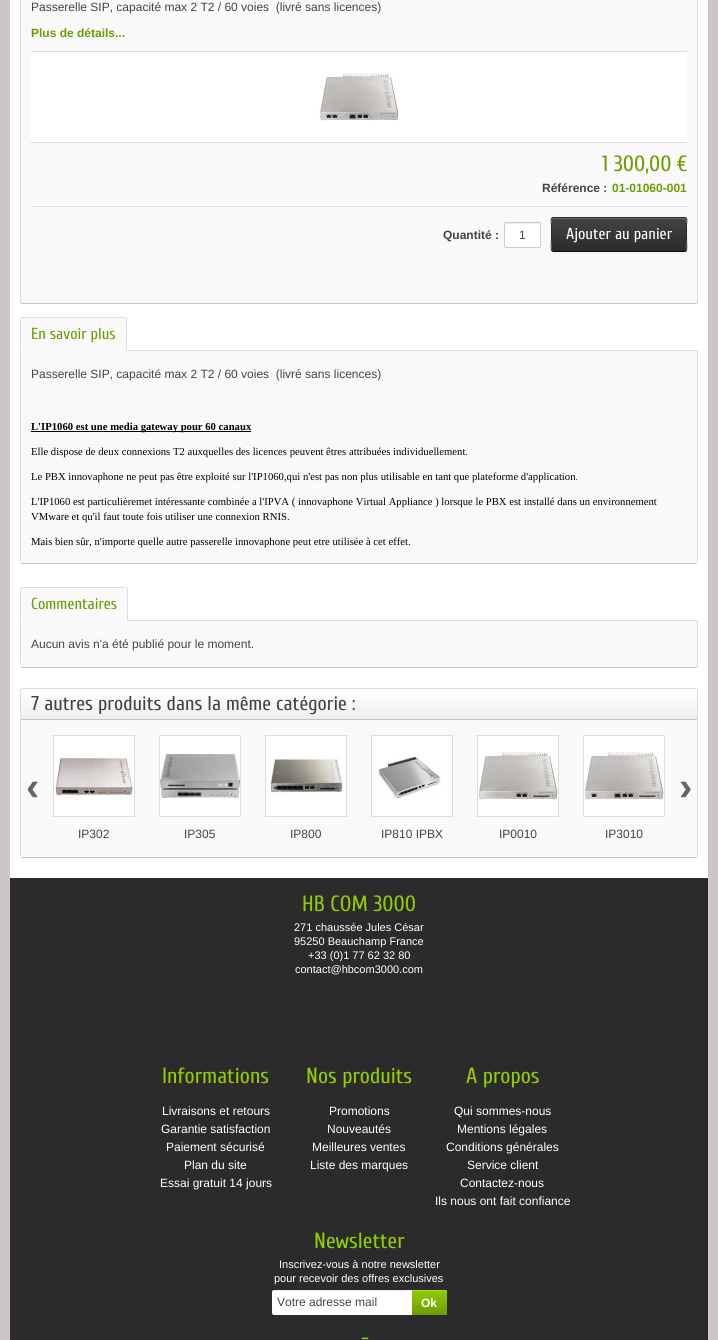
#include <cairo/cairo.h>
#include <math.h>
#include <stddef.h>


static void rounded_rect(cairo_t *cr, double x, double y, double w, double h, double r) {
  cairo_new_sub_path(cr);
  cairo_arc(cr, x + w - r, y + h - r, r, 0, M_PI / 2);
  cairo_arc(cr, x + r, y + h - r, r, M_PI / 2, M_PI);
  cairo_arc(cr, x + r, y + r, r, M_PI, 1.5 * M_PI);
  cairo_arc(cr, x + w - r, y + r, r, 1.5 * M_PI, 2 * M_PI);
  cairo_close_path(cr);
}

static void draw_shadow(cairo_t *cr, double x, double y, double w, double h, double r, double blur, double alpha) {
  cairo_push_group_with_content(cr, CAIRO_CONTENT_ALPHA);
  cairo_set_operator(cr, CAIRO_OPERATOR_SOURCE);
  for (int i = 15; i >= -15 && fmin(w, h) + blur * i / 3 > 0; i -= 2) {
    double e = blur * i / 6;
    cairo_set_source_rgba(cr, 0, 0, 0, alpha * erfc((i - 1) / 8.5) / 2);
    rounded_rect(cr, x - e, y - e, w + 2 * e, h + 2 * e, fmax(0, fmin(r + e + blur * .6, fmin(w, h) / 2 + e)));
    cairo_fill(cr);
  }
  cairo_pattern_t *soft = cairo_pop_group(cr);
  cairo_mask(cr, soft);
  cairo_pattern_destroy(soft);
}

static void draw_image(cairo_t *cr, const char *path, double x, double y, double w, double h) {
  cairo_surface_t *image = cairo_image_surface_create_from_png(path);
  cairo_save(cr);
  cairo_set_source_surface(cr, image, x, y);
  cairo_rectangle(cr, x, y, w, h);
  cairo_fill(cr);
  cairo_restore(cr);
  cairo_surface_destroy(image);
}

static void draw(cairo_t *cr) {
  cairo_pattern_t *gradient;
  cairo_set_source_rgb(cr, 204 / 255.0, 199 / 255.0, 199 / 255.0);
  cairo_paint(cr);
  cairo_set_source_rgb(cr, 1, 1, 1);
  cairo_rectangle(cr, 10, 0, 698, 878);
  cairo_fill(cr);
  cairo_set_source_rgb(cr, 249 / 255.0, 249 / 255.0, 249 / 255.0);
  rounded_rect(cr, 20, -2, 678, 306, 2);
  cairo_fill(cr);
  cairo_new_path(cr);
  cairo_move_to(cr, 697, 303);
  cairo_line_to(cr, 696, 303.5);
  cairo_line_to(cr, 22, 303.5);
  cairo_line_to(cr, 21, 303);
  cairo_set_source_rgb(cr, 196 / 255.0, 196 / 255.0, 196 / 255.0);
  cairo_set_line_width(cr, 1);
  cairo_stroke(cr);
  cairo_new_path(cr);
  cairo_move_to(cr, 21, 303);
  cairo_line_to(cr, 20.5, 302);
  cairo_line_to(cr, 20.5, -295.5);
  cairo_curve_to(cr, 20.5, -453, -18.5, -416.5, 134.5, -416.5);
  cairo_line_to(cr, 583.5, -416.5);
  cairo_curve_to(cr, 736.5, -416.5, 697.5, -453, 697.5, -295.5);
  cairo_line_to(cr, 697.5, 302);
  cairo_line_to(cr, 697, 303);
  cairo_set_source_rgb(cr, 221 / 255.0, 221 / 255.0, 221 / 255.0);
  cairo_stroke(cr);
  cairo_rectangle(cr, 31, 51, 656, 1);
  cairo_fill(cr);
  cairo_set_source_rgb(cr, 1, 1, 1);
  cairo_rectangle(cr, 31, 52, 656, 90);
  cairo_fill(cr);
  cairo_set_source_rgb(cr, 221 / 255.0, 221 / 255.0, 221 / 255.0);
  cairo_rectangle(cr, 31, 142, 656, 1);
  cairo_fill(cr);
  draw_image(cr, "images/1.png", 319, 73, 80, 48);
  cairo_rectangle(cr, 31, 206, 656, 1);
  cairo_fill(cr);
  cairo_set_source_rgb(cr, 1, 1, 1);
  rounded_rect(cr, 504, 222, 37, 26, 2);
  cairo_fill(cr);
  cairo_set_source_rgb(cr, 236 / 255.0, 236 / 255.0, 236 / 255.0);
  cairo_set_fill_rule(cr, CAIRO_FILL_RULE_EVEN_ODD);
  cairo_new_path(cr);
  cairo_move_to(cr, 506, 224);
  cairo_line_to(cr, 539.5, 224);
  cairo_line_to(cr, 540, 225);
  cairo_curve_to(cr, 540, 221.5, 537, 223, 533.5, 223);
  cairo_line_to(cr, 511.5, 223);
  cairo_curve_to(cr, 508, 223, 505, 221.5, 505, 225);
  cairo_close_path(cr);
  cairo_move_to(cr, 505, 246.5);
  cairo_line_to(cr, 505, 245.5);
  cairo_close_path(cr);
  cairo_fill(cr);
  rounded_rect(cr, 504.5, 222.5, 36, 25, 1.5);
  cairo_set_source_rgb(cr, 204 / 255.0, 204 / 255.0, 204 / 255.0);
  cairo_stroke(cr);
  cairo_set_source_rgb(cr, 0, 0, 0);
  draw_shadow(cr, 551, 218, 136, 35, 2, 1, 0.05);
  gradient = cairo_pattern_create_linear(619, 218, 619, 251);
  cairo_pattern_add_color_stop_rgba(gradient, 0, 68 / 255.0, 68 / 255.0, 68 / 255.0, 1);
  cairo_pattern_add_color_stop_rgba(gradient, 1, 43 / 255.0, 43 / 255.0, 43 / 255.0, 1);
  cairo_set_source(cr, gradient);
  cairo_pattern_destroy(gradient);
  rounded_rect(cr, 552, 218, 134, 33, 1);
  cairo_fill(cr);
  cairo_set_source_rgba(cr, 1, 1, 1, 0.2);
  cairo_set_fill_rule(cr, CAIRO_FILL_RULE_WINDING);
  cairo_new_path(cr);
  cairo_move_to(cr, 553, 219);
  cairo_line_to(cr, 685, 219);
  cairo_curve_to(cr, 686, 219, 686, 219, 686, 220);
  cairo_line_to(cr, 686, 218);
  cairo_line_to(cr, 575, 218);
  cairo_curve_to(cr, 574, 218, 552, 212, 552, 220);
  cairo_curve_to(cr, 552, 219, 552, 219, 553, 219);
  cairo_close_path(cr);
  cairo_fill(cr);
  cairo_new_path(cr);
  cairo_move_to(cr, 686, 251);
  cairo_line_to(cr, 685, 251.5);
  cairo_line_to(cr, 553, 251.5);
  cairo_line_to(cr, 552, 251);
  cairo_set_source_rgb(cr, 17 / 255.0, 17 / 255.0, 17 / 255.0);
  cairo_stroke(cr);
  cairo_new_path(cr);
  cairo_move_to(cr, 552, 251);
  cairo_curve_to(cr, 550.5, 249.5, 551.5, 241.5, 551.5, 239.5);
  cairo_line_to(cr, 551.5, 224);
  cairo_curve_to(cr, 551.5, 224, 550, 217.5, 553, 217.5);
  cairo_line_to(cr, 685, 217.5);
  cairo_curve_to(cr, 688, 217.5, 686.5, 224, 686.5, 224);
  cairo_line_to(cr, 686.5, 239.5);
  cairo_curve_to(cr, 686.5, 241.5, 687.5, 249.5, 686, 251);
  cairo_set_source_rgb(cr, 43 / 255.0, 43 / 255.0, 43 / 255.0);
  cairo_stroke(cr);
  cairo_set_source_rgb(cr, 249 / 255.0, 249 / 255.0, 249 / 255.0);
  cairo_new_path(cr);
  cairo_move_to(cr, 20, 350);
  cairo_line_to(cr, 698, 350);
  cairo_line_to(cr, 698, 562);
  cairo_curve_to(cr, 698, 563, 697, 564, 696, 564);
  cairo_line_to(cr, 22, 564);
  cairo_curve_to(cr, 21, 564, 20, 563, 20, 562);
  cairo_close_path(cr);
  cairo_fill(cr);
  cairo_set_source_rgb(cr, 221 / 255.0, 221 / 255.0, 221 / 255.0);
  cairo_new_path(cr);
  cairo_move_to(cr, 20, 350);
  cairo_line_to(cr, 21, 351);
  cairo_line_to(cr, 697, 351);
  cairo_line_to(cr, 698, 350);
  cairo_close_path(cr);
  cairo_fill(cr);
  cairo_new_path(cr);
  cairo_move_to(cr, 21, 351);
  cairo_line_to(cr, 20, 350);
  cairo_line_to(cr, 20, 562);
  cairo_line_to(cr, 21, 563);
  cairo_line_to(cr, 21, 562);
  cairo_close_path(cr);
  cairo_fill(cr);
  cairo_set_source_rgb(cr, 249 / 255.0, 249 / 255.0, 249 / 255.0);
  cairo_new_path(cr);
  cairo_move_to(cr, 22, 317);
  cairo_line_to(cr, 125, 317);
  cairo_curve_to(cr, 126, 317, 127, 318, 127, 319);
  cairo_line_to(cr, 127, 351);
  cairo_line_to(cr, 20, 351);
  cairo_line_to(cr, 20, 319);
  cairo_curve_to(cr, 20, 318, 21, 317, 22, 317);
  cairo_close_path(cr);
  cairo_fill(cr);
  cairo_set_source_rgb(cr, 221 / 255.0, 221 / 255.0, 221 / 255.0);
  cairo_new_path(cr);
  cairo_move_to(cr, 22, 317);
  cairo_line_to(cr, 21, 318);
  cairo_line_to(cr, 22, 318);
  cairo_line_to(cr, 126, 318);
  cairo_line_to(cr, 125, 317);
  cairo_close_path(cr);
  cairo_fill(cr);
  cairo_new_path(cr);
  cairo_move_to(cr, 127, 351);
  cairo_line_to(cr, 127, 319);
  cairo_line_to(cr, 126.5, 317.5);
  cairo_line_to(cr, 126, 318);
  cairo_line_to(cr, 126, 350);
  cairo_close_path(cr);
  cairo_fill(cr);
  cairo_set_source_rgb(cr, 249 / 255.0, 249 / 255.0, 249 / 255.0);
  cairo_new_path(cr);
  cairo_move_to(cr, 127, 351);
  cairo_line_to(cr, 126, 350);
  cairo_line_to(cr, 21, 350);
  cairo_line_to(cr, 20, 351);
  cairo_close_path(cr);
  cairo_fill(cr);
  cairo_set_source_rgb(cr, 221 / 255.0, 221 / 255.0, 221 / 255.0);
  cairo_new_path(cr);
  cairo_move_to(cr, 20, 351);
  cairo_line_to(cr, 21, 350);
  cairo_line_to(cr, 21, 319);
  cairo_line_to(cr, 21.5, 318.5);
  cairo_line_to(cr, 20.5, 317.5);
  cairo_line_to(cr, 20, 319);
  cairo_close_path(cr);
  cairo_fill(cr);
  cairo_new_path(cr);
  cairo_move_to(cr, 698, 350);
  cairo_line_to(cr, 697, 351);
  cairo_line_to(cr, 697, 563);
  cairo_line_to(cr, 698, 562);
  cairo_close_path(cr);
  cairo_fill(cr);
  cairo_set_source_rgb(cr, 196 / 255.0, 196 / 255.0, 196 / 255.0);
  cairo_new_path(cr);
  cairo_move_to(cr, 22, 564);
  cairo_line_to(cr, 696, 564);
  cairo_line_to(cr, 697, 563);
  cairo_line_to(cr, 21, 563);
  cairo_close_path(cr);
  cairo_fill(cr);
  cairo_set_source_rgb(cr, 0, 0, 0);
  cairo_rectangle(cr, 31, 431, 220, 1);
  cairo_fill(cr);
  cairo_set_source_rgb(cr, 249 / 255.0, 249 / 255.0, 249 / 255.0);
  cairo_new_path(cr);
  cairo_move_to(cr, 20, 620);
  cairo_line_to(cr, 698, 620);
  cairo_line_to(cr, 698, 666);
  cairo_curve_to(cr, 698, 667, 697, 668, 696, 668);
  cairo_line_to(cr, 22, 668);
  cairo_curve_to(cr, 21, 668, 20, 667, 20, 666);
  cairo_close_path(cr);
  cairo_fill(cr);
  cairo_set_source_rgb(cr, 221 / 255.0, 221 / 255.0, 221 / 255.0);
  cairo_new_path(cr);
  cairo_move_to(cr, 20, 620);
  cairo_line_to(cr, 21, 621);
  cairo_line_to(cr, 697, 621);
  cairo_line_to(cr, 698, 620);
  cairo_close_path(cr);
  cairo_fill(cr);
  cairo_new_path(cr);
  cairo_move_to(cr, 698, 620);
  cairo_line_to(cr, 697, 621);
  cairo_line_to(cr, 697, 666);
  cairo_line_to(cr, 696, 666);
  cairo_line_to(cr, 697, 667);
  cairo_line_to(cr, 698, 666);
  cairo_close_path(cr);
  cairo_fill(cr);
  cairo_set_source_rgb(cr, 196 / 255.0, 196 / 255.0, 196 / 255.0);
  cairo_new_path(cr);
  cairo_move_to(cr, 22, 668);
  cairo_line_to(cr, 696, 668);
  cairo_line_to(cr, 697, 667);
  cairo_line_to(cr, 696, 666);
  cairo_line_to(cr, 696, 667);
  cairo_line_to(cr, 22, 667);
  cairo_line_to(cr, 22, 666);
  cairo_line_to(cr, 21, 667);
  cairo_close_path(cr);
  cairo_fill(cr);
  cairo_save(cr);
  cairo_rectangle(cr, 20, 584, 678, 84);
  cairo_clip(cr);
  cairo_set_source_rgb(cr, 221 / 255.0, 221 / 255.0, 221 / 255.0);
  cairo_new_path(cr);
  cairo_move_to(cr, 21, 621);
  cairo_line_to(cr, 20, 620);
  cairo_curve_to(cr, 20, 625, 19, 666, 21, 667);
  cairo_line_to(cr, 22, 666);
  cairo_line_to(cr, 21, 666);
  cairo_close_path(cr);
  cairo_fill(cr);
  cairo_restore(cr);
  cairo_set_source_rgb(cr, 249 / 255.0, 249 / 255.0, 249 / 255.0);
  cairo_new_path(cr);
  cairo_move_to(cr, 22, 587);
  cairo_line_to(cr, 126, 587);
  cairo_curve_to(cr, 127, 587, 128, 588, 128, 589);
  cairo_line_to(cr, 128, 621);
  cairo_line_to(cr, 20, 621);
  cairo_line_to(cr, 20, 589);
  cairo_curve_to(cr, 20, 588, 21, 587, 22, 587);
  cairo_close_path(cr);
  cairo_fill(cr);
  cairo_set_source_rgb(cr, 221 / 255.0, 221 / 255.0, 221 / 255.0);
  cairo_new_path(cr);
  cairo_move_to(cr, 22, 587);
  cairo_line_to(cr, 21, 588);
  cairo_line_to(cr, 22, 588);
  cairo_line_to(cr, 127, 588);
  cairo_line_to(cr, 126, 587);
  cairo_close_path(cr);
  cairo_fill(cr);
  cairo_new_path(cr);
  cairo_move_to(cr, 128, 621);
  cairo_line_to(cr, 128, 589);
  cairo_line_to(cr, 127.5, 587.5);
  cairo_line_to(cr, 127, 588);
  cairo_line_to(cr, 127, 620);
  cairo_close_path(cr);
  cairo_fill(cr);
  cairo_set_source_rgb(cr, 249 / 255.0, 249 / 255.0, 249 / 255.0);
  cairo_new_path(cr);
  cairo_move_to(cr, 128, 621);
  cairo_line_to(cr, 127, 620);
  cairo_line_to(cr, 21, 620);
  cairo_line_to(cr, 20, 621);
  cairo_close_path(cr);
  cairo_fill(cr);
  cairo_set_source_rgb(cr, 221 / 255.0, 221 / 255.0, 221 / 255.0);
  cairo_new_path(cr);
  cairo_move_to(cr, 20, 621);
  cairo_line_to(cr, 21, 620);
  cairo_line_to(cr, 21, 589);
  cairo_line_to(cr, 21.5, 588.5);
  cairo_line_to(cr, 20.5, 587.5);
  cairo_line_to(cr, 20, 589);
  cairo_close_path(cr);
  cairo_fill(cr);
  gradient = cairo_pattern_create_linear(359, 689, 359, 719);
  cairo_pattern_add_color_stop_rgba(gradient, 0, 1, 1, 1, 1);
  cairo_pattern_add_color_stop_rgba(gradient, 1, 238 / 255.0, 238 / 255.0, 238 / 255.0, 1);
  cairo_set_source(cr, gradient);
  cairo_pattern_destroy(gradient);
  cairo_new_path(cr);
  cairo_move_to(cr, 22, 689);
  cairo_line_to(cr, 696, 689);
  cairo_curve_to(cr, 696.5, 689, 697, 689.5, 697, 690);
  cairo_line_to(cr, 697, 719);
  cairo_line_to(cr, 21, 719);
  cairo_line_to(cr, 21, 690);
  cairo_curve_to(cr, 21, 689.5, 21.5, 689, 22, 689);
  cairo_close_path(cr);
  cairo_fill(cr);
  cairo_set_source_rgb(cr, 221 / 255.0, 221 / 255.0, 221 / 255.0);
  cairo_new_path(cr);
  cairo_move_to(cr, 22, 688);
  cairo_line_to(cr, 21, 689);
  cairo_line_to(cr, 22, 690);
  cairo_line_to(cr, 22, 689);
  cairo_line_to(cr, 697, 689);
  cairo_line_to(cr, 696, 688);
  cairo_close_path(cr);
  cairo_fill(cr);
  cairo_new_path(cr);
  cairo_move_to(cr, 698, 720);
  cairo_line_to(cr, 698, 690);
  cairo_line_to(cr, 697.5, 688.5);
  cairo_line_to(cr, 697, 689);
  cairo_line_to(cr, 697, 719);
  cairo_close_path(cr);
  cairo_fill(cr);
  cairo_set_source_rgb(cr, 196 / 255.0, 196 / 255.0, 196 / 255.0);
  cairo_new_path(cr);
  cairo_move_to(cr, 698, 720);
  cairo_line_to(cr, 697, 719);
  cairo_line_to(cr, 21, 719);
  cairo_line_to(cr, 20, 720);
  cairo_close_path(cr);
  cairo_fill(cr);
  cairo_set_source_rgb(cr, 221 / 255.0, 221 / 255.0, 221 / 255.0);
  cairo_new_path(cr);
  cairo_move_to(cr, 20, 720);
  cairo_line_to(cr, 21, 719);
  cairo_line_to(cr, 21, 690);
  cairo_line_to(cr, 21.5, 689.5);
  cairo_line_to(cr, 20.5, 688.5);
  cairo_line_to(cr, 20, 690);
  cairo_close_path(cr);
  cairo_fill(cr);
  cairo_set_source_rgb(cr, 249 / 255.0, 249 / 255.0, 249 / 255.0);
  cairo_new_path(cr);
  cairo_move_to(cr, 20, 720);
  cairo_line_to(cr, 698, 720);
  cairo_line_to(cr, 698, 856);
  cairo_curve_to(cr, 698, 857, 697, 858, 696, 858);
  cairo_line_to(cr, 22, 858);
  cairo_curve_to(cr, 21, 858, 20, 857, 20, 856);
  cairo_close_path(cr);
  cairo_fill(cr);
  cairo_set_source_rgb(cr, 221 / 255.0, 221 / 255.0, 221 / 255.0);
  cairo_new_path(cr);
  cairo_move_to(cr, 698, 720);
  cairo_line_to(cr, 697, 720);
  cairo_line_to(cr, 697, 857);
  cairo_line_to(cr, 698, 856);
  cairo_close_path(cr);
  cairo_fill(cr);
  cairo_set_source_rgb(cr, 196 / 255.0, 196 / 255.0, 196 / 255.0);
  cairo_new_path(cr);
  cairo_move_to(cr, 22, 858);
  cairo_line_to(cr, 696, 858);
  cairo_line_to(cr, 697, 857);
  cairo_line_to(cr, 21, 857);
  cairo_close_path(cr);
  cairo_fill(cr);
  cairo_set_source_rgb(cr, 221 / 255.0, 221 / 255.0, 221 / 255.0);
  cairo_new_path(cr);
  cairo_move_to(cr, 20, 720);
  cairo_line_to(cr, 21, 720);
  cairo_line_to(cr, 21, 857);
  cairo_line_to(cr, 20, 856);
  cairo_close_path(cr);
  cairo_fill(cr);
  cairo_set_source_rgb(cr, 1, 1, 1);
  cairo_rectangle(cr, 53.5, 735.5, 81, 81);
  cairo_fill_preserve(cr);
  cairo_set_source_rgb(cr, 221 / 255.0, 221 / 255.0, 221 / 255.0);
  cairo_stroke(cr);
  draw_image(cr, "images/2.png", 54, 752, 80, 48);
  cairo_set_source_rgb(cr, 1, 1, 1);
  cairo_rectangle(cr, 159.5, 735.5, 81, 81);
  cairo_fill_preserve(cr);
  cairo_set_source_rgb(cr, 221 / 255.0, 221 / 255.0, 221 / 255.0);
  cairo_stroke(cr);
  draw_image(cr, "images/3.png", 160, 752, 80, 48);
  cairo_set_source_rgb(cr, 1, 1, 1);
  cairo_rectangle(cr, 265.5, 735.5, 81, 81);
  cairo_fill_preserve(cr);
  cairo_set_source_rgb(cr, 221 / 255.0, 221 / 255.0, 221 / 255.0);
  cairo_stroke(cr);
  draw_image(cr, "images/4.png", 266, 756, 80, 38);
  cairo_set_source_rgb(cr, 1, 1, 1);
  cairo_rectangle(cr, 371.5, 735.5, 81, 81);
  cairo_fill_preserve(cr);
  cairo_set_source_rgb(cr, 221 / 255.0, 221 / 255.0, 221 / 255.0);
  cairo_stroke(cr);
  draw_image(cr, "images/5.png", 376, 752, 67, 48);
  cairo_set_source_rgb(cr, 1, 1, 1);
  cairo_rectangle(cr, 477.5, 735.5, 81, 81);
  cairo_fill_preserve(cr);
  cairo_set_source_rgb(cr, 221 / 255.0, 221 / 255.0, 221 / 255.0);
  cairo_stroke(cr);
  draw_image(cr, "images/6.png", 478, 752, 80, 48);
  cairo_set_source_rgb(cr, 1, 1, 1);
  cairo_rectangle(cr, 583.5, 735.5, 81, 81);
  cairo_fill_preserve(cr);
  cairo_set_source_rgb(cr, 221 / 255.0, 221 / 255.0, 221 / 255.0);
  cairo_stroke(cr);
  draw_image(cr, "images/7.png", 584, 752, 80, 48);
  cairo_set_source_rgb(cr, 43 / 255.0, 43 / 255.0, 43 / 255.0);
  cairo_rectangle(cr, 10, 878, 698, 462);
  cairo_fill(cr);
  cairo_set_source_rgb(cr, 1, 1, 1);
  rounded_rect(cr, 272, 1290, 175, 25, 2);
  cairo_fill(cr);
  cairo_set_source_rgba(cr, 0, 0, 0, 0.07);
  cairo_new_path(cr);
  cairo_move_to(cr, 274, 1291);
  cairo_line_to(cr, 445, 1291);
  cairo_curve_to(cr, 446, 1291, 447, 1292, 447, 1293);
  cairo_curve_to(cr, 447, 1292, 447, 1290, 445, 1290);
  cairo_line_to(cr, 274, 1290);
  cairo_curve_to(cr, 272, 1290, 272, 1292, 272, 1293);
  cairo_curve_to(cr, 272, 1292, 273, 1291, 274, 1291);
  cairo_close_path(cr);
  cairo_fill(cr);
  cairo_set_source_rgb(cr, 0, 0, 0);
  draw_shadow(cr, 412, 1291, 35, 25, 2, 1, 0.05);
  gradient = cairo_pattern_create_linear(430, 1290, 430, 1315);
  cairo_pattern_add_color_stop_rgba(gradient, 0, 146 / 255.0, 205 / 255.0, 3 / 255.0, 1);
  cairo_pattern_add_color_stop_rgba(gradient, 1, 110 / 255.0, 155 / 255.0, 2 / 255.0, 1);
  cairo_set_source(cr, gradient);
  cairo_pattern_destroy(gradient);
  cairo_new_path(cr);
  cairo_move_to(cr, 412, 1290);
  cairo_line_to(cr, 445, 1290);
  cairo_curve_to(cr, 446, 1290, 447, 1291, 447, 1292);
  cairo_line_to(cr, 447, 1313);
  cairo_curve_to(cr, 447, 1314, 446, 1315, 445, 1315);
  cairo_line_to(cr, 412, 1315);
  cairo_close_path(cr);
  cairo_fill(cr);
  cairo_set_source_rgba(cr, 1, 1, 1, 0.2);
  cairo_new_path(cr);
  cairo_move_to(cr, 412, 1291);
  cairo_line_to(cr, 440, 1291);
  cairo_curve_to(cr, 444.5, 1291, 446.5, 1291, 447, 1292.5);
  cairo_line_to(cr, 447, 1292);
  cairo_curve_to(cr, 447, 1291, 446, 1290, 445, 1290);
  cairo_line_to(cr, 412, 1290);
  cairo_close_path(cr);
  cairo_fill(cr);
  cairo_select_font_face(cr, "Liberation Sans", CAIRO_FONT_SLANT_NORMAL, CAIRO_FONT_WEIGHT_NORMAL);
  cairo_set_font_size(cr, 12);
  cairo_set_source_rgb(cr, 68 / 255.0, 68 / 255.0, 68 / 255.0);
  cairo_move_to(cr, 31, 11);
  cairo_show_text(cr, "Passerelle SIP, capacité max 2 T2 / 60 voies  (livré sans licences)");
  cairo_select_font_face(cr, "Liberation Sans", CAIRO_FONT_SLANT_NORMAL, CAIRO_FONT_WEIGHT_BOLD);
  cairo_set_source_rgb(cr, 110 / 255.0, 155 / 255.0, 2 / 255.0);
  cairo_move_to(cr, 31, 37);
  cairo_show_text(cr, "Plus de détails...");
  cairo_select_font_face(cr, "Cuprum", CAIRO_FONT_SLANT_NORMAL, CAIRO_FONT_WEIGHT_NORMAL);
  cairo_set_font_size(cr, 22);
  cairo_move_to(cr, 602, 171);
  cairo_show_text(cr, "1 300,00 €");
  cairo_select_font_face(cr, "Liberation Sans", CAIRO_FONT_SLANT_NORMAL, CAIRO_FONT_WEIGHT_BOLD);
  cairo_set_font_size(cr, 12);
  cairo_set_source_rgb(cr, 68 / 255.0, 68 / 255.0, 68 / 255.0);
  cairo_move_to(cr, 542, 192);
  cairo_show_text(cr, "Référence :");
  cairo_set_source_rgb(cr, 110 / 255.0, 155 / 255.0, 2 / 255.0);
  cairo_move_to(cr, 612, 192);
  cairo_show_text(cr, "01-01060-001");
  cairo_set_source_rgb(cr, 68 / 255.0, 68 / 255.0, 68 / 255.0);
  cairo_move_to(cr, 443, 239);
  cairo_show_text(cr, "Quantité :");
  cairo_select_font_face(cr, "Liberation Sans", CAIRO_FONT_SLANT_NORMAL, CAIRO_FONT_WEIGHT_NORMAL);
  cairo_move_to(cr, 519, 239);
  cairo_show_text(cr, "1");
  cairo_select_font_face(cr, "Cuprum", CAIRO_FONT_SLANT_NORMAL, CAIRO_FONT_WEIGHT_NORMAL);
  cairo_set_font_size(cr, 16);
  cairo_set_source_rgb(cr, 1, 1, 1);
  cairo_move_to(cr, 566, 239);
  cairo_show_text(cr, "Ajouter au panier");
  cairo_set_source_rgb(cr, 110 / 255.0, 155 / 255.0, 2 / 255.0);
  cairo_move_to(cr, 31, 339);
  cairo_show_text(cr, "En savoir plus");
  cairo_select_font_face(cr, "Liberation Sans", CAIRO_FONT_SLANT_NORMAL, CAIRO_FONT_WEIGHT_NORMAL);
  cairo_set_font_size(cr, 12);
  cairo_set_source_rgb(cr, 68 / 255.0, 68 / 255.0, 68 / 255.0);
  cairo_move_to(cr, 31, 378);
  cairo_show_text(cr, "Passerelle SIP, capacité max 2 T2 / 60 voies  (livré sans licences)");
  cairo_select_font_face(cr, "Liberation Serif", CAIRO_FONT_SLANT_NORMAL, CAIRO_FONT_WEIGHT_BOLD);
  cairo_set_font_size(cr, 10.67);
  cairo_set_source_rgb(cr, 0, 0, 0);
  cairo_move_to(cr, 31, 430);
  cairo_show_text(cr, "L'IP1060 est une media gateway pour 60 canaux");
  cairo_select_font_face(cr, "Liberation Serif", CAIRO_FONT_SLANT_NORMAL, CAIRO_FONT_WEIGHT_NORMAL);
  cairo_move_to(cr, 31, 455);
  cairo_show_text(cr, "Elle dispose de deux connexions T2 auxquelles des licences peuvent êtres attribuées individuellement.");
  cairo_move_to(cr, 31, 480);
  cairo_show_text(cr, "Le PBX innovaphone ne peut pas être exploité sur l'IP1060,qui n'est pas non plus utilisable en tant que plateforme d'application.");
  cairo_move_to(cr, 31, 505);
  cairo_show_text(cr, "L'IP1060 est particulièremet intéressante combinée a l'IPVA ( innovaphone Virtual Appliance ) lorsque le PBX est installé dans un environnement");
  cairo_move_to(cr, 31, 520);
  cairo_show_text(cr, "VMware et qu'il faut toute fois utiliser une connexion RNIS.");
  cairo_move_to(cr, 31, 545);
  cairo_show_text(cr, "Mais bien sûr, n'importe quelle autre passerelle innovaphone peut etre utilisée à cet effet.");
  cairo_select_font_face(cr, "Cuprum", CAIRO_FONT_SLANT_NORMAL, CAIRO_FONT_WEIGHT_NORMAL);
  cairo_set_font_size(cr, 16);
  cairo_set_source_rgb(cr, 110 / 255.0, 155 / 255.0, 2 / 255.0);
  cairo_move_to(cr, 31, 609);
  cairo_show_text(cr, "Commentaires");
  cairo_select_font_face(cr, "Liberation Sans", CAIRO_FONT_SLANT_NORMAL, CAIRO_FONT_WEIGHT_NORMAL);
  cairo_set_font_size(cr, 12);
  cairo_set_source_rgb(cr, 68 / 255.0, 68 / 255.0, 68 / 255.0);
  cairo_move_to(cr, 31, 648);
  cairo_show_text(cr, "Aucun avis n'a été publié pour le moment.");
  cairo_select_font_face(cr, "Cuprum", CAIRO_FONT_SLANT_NORMAL, CAIRO_FONT_WEIGHT_NORMAL);
  cairo_set_font_size(cr, 20);
  cairo_move_to(cr, 31, 710);
  cairo_show_text(cr, "7 autres produits dans la même catégorie :");
  cairo_select_font_face(cr, "Liberation Sans", CAIRO_FONT_SLANT_NORMAL, CAIRO_FONT_WEIGHT_BOLD);
  cairo_set_font_size(cr, 40);
  cairo_set_source_rgb(cr, 102 / 255.0, 102 / 255.0, 102 / 255.0);
  cairo_move_to(cr, 26, 800);
  cairo_show_text(cr, "‹");
  cairo_move_to(cr, 679, 800);
  cairo_show_text(cr, "›");
  cairo_select_font_face(cr, "Liberation Sans", CAIRO_FONT_SLANT_NORMAL, CAIRO_FONT_WEIGHT_NORMAL);
  cairo_set_font_size(cr, 12);
  cairo_set_source_rgb(cr, 68 / 255.0, 68 / 255.0, 68 / 255.0);
  cairo_move_to(cr, 78, 838);
  cairo_show_text(cr, "IP302");
  cairo_move_to(cr, 184, 838);
  cairo_show_text(cr, "IP305");
  cairo_move_to(cr, 290, 838);
  cairo_show_text(cr, "IP800");
  cairo_move_to(cr, 381, 838);
  cairo_show_text(cr, "IP810 IPBX");
  cairo_move_to(cr, 499, 838);
  cairo_show_text(cr, "IP0010");
  cairo_move_to(cr, 605, 838);
  cairo_show_text(cr, "IP3010");
  cairo_select_font_face(cr, "Cuprum", CAIRO_FONT_SLANT_NORMAL, CAIRO_FONT_WEIGHT_NORMAL);
  cairo_set_font_size(cr, 22);
  cairo_set_source_rgb(cr, 146 / 255.0, 205 / 255.0, 3 / 255.0);
  cairo_move_to(cr, 302, 911);
  cairo_show_text(cr, "HB COM 3000");
  cairo_select_font_face(cr, "Liberation Sans", CAIRO_FONT_SLANT_NORMAL, CAIRO_FONT_WEIGHT_NORMAL);
  cairo_set_font_size(cr, 11);
  cairo_set_source_rgb(cr, 1, 1, 1);
  cairo_move_to(cr, 294, 931);
  cairo_show_text(cr, "271 chaussée Jules César");
  cairo_move_to(cr, 294, 945);
  cairo_show_text(cr, "95250 Beauchamp France");
  cairo_move_to(cr, 308, 959);
  cairo_show_text(cr, "+33 (0)1 77 62 32 80");
  cairo_move_to(cr, 295, 973);
  cairo_show_text(cr, "contact@hbcom3000.com");
  cairo_select_font_face(cr, "Cuprum", CAIRO_FONT_SLANT_NORMAL, CAIRO_FONT_WEIGHT_NORMAL);
  cairo_set_font_size(cr, 22);
  cairo_set_source_rgb(cr, 146 / 255.0, 205 / 255.0, 3 / 255.0);
  cairo_move_to(cr, 162, 1083);
  cairo_show_text(cr, "Informations");
  cairo_select_font_face(cr, "Liberation Sans", CAIRO_FONT_SLANT_NORMAL, CAIRO_FONT_WEIGHT_NORMAL);
  cairo_set_font_size(cr, 12);
  cairo_set_source_rgb(cr, 1, 1, 1);
  cairo_move_to(cr, 162, 1115);
  cairo_show_text(cr, "Livraisons et retours");
  cairo_move_to(cr, 161, 1133);
  cairo_show_text(cr, "Garantie satisfaction");
  cairo_move_to(cr, 166, 1151);
  cairo_show_text(cr, "Paiement sécurisé");
  cairo_move_to(cr, 184, 1169);
  cairo_show_text(cr, "Plan du site");
  cairo_move_to(cr, 160, 1187);
  cairo_show_text(cr, "Essai gratuit 14 jours");
  cairo_select_font_face(cr, "Cuprum", CAIRO_FONT_SLANT_NORMAL, CAIRO_FONT_WEIGHT_NORMAL);
  cairo_set_font_size(cr, 22);
  cairo_set_source_rgb(cr, 146 / 255.0, 205 / 255.0, 3 / 255.0);
  cairo_move_to(cr, 306, 1083);
  cairo_show_text(cr, "Nos produits");
  cairo_select_font_face(cr, "Liberation Sans", CAIRO_FONT_SLANT_NORMAL, CAIRO_FONT_WEIGHT_NORMAL);
  cairo_set_font_size(cr, 12);
  cairo_set_source_rgb(cr, 1, 1, 1);
  cairo_move_to(cr, 329, 1115);
  cairo_show_text(cr, "Promotions");
  cairo_move_to(cr, 327, 1133);
  cairo_show_text(cr, "Nouveautés");
  cairo_move_to(cr, 312, 1151);
  cairo_show_text(cr, "Meilleures ventes");
  cairo_move_to(cr, 310, 1169);
  cairo_show_text(cr, "Liste des marques");
  cairo_select_font_face(cr, "Cuprum", CAIRO_FONT_SLANT_NORMAL, CAIRO_FONT_WEIGHT_NORMAL);
  cairo_set_font_size(cr, 22);
  cairo_set_source_rgb(cr, 146 / 255.0, 205 / 255.0, 3 / 255.0);
  cairo_move_to(cr, 466, 1083);
  cairo_show_text(cr, "A propos");
  cairo_select_font_face(cr, "Liberation Sans", CAIRO_FONT_SLANT_NORMAL, CAIRO_FONT_WEIGHT_NORMAL);
  cairo_set_font_size(cr, 12);
  cairo_set_source_rgb(cr, 1, 1, 1);
  cairo_move_to(cr, 454, 1115);
  cairo_show_text(cr, "Qui sommes-nous");
  cairo_move_to(cr, 457, 1133);
  cairo_show_text(cr, "Mentions légales");
  cairo_move_to(cr, 446, 1151);
  cairo_show_text(cr, "Conditions générales");
  cairo_move_to(cr, 467, 1169);
  cairo_show_text(cr, "Service client");
  cairo_move_to(cr, 460, 1187);
  cairo_show_text(cr, "Contactez-nous");
  cairo_move_to(cr, 435, 1205);
  cairo_show_text(cr, "Ils nous ont fait confiance");
  cairo_select_font_face(cr, "Cuprum", CAIRO_FONT_SLANT_NORMAL, CAIRO_FONT_WEIGHT_NORMAL);
  cairo_set_font_size(cr, 22);
  cairo_set_source_rgb(cr, 146 / 255.0, 205 / 255.0, 3 / 255.0);
  cairo_move_to(cr, 314, 1248);
  cairo_show_text(cr, "Newsletter");
  cairo_select_font_face(cr, "Liberation Sans", CAIRO_FONT_SLANT_NORMAL, CAIRO_FONT_WEIGHT_NORMAL);
  cairo_set_font_size(cr, 11);
  cairo_set_source_rgb(cr, 1, 1, 1);
  cairo_move_to(cr, 279, 1268);
  cairo_show_text(cr, "Inscrivez-vous à notre newsletter");
  cairo_move_to(cr, 274, 1282);
  cairo_show_text(cr, "pour recevoir des offres exclusives");
  cairo_set_font_size(cr, 12);
  cairo_set_source_rgb(cr, 68 / 255.0, 68 / 255.0, 68 / 255.0);
  cairo_move_to(cr, 277, 1306);
  cairo_show_text(cr, "Votre adresse mail");
  cairo_select_font_face(cr, "Liberation Sans", CAIRO_FONT_SLANT_NORMAL, CAIRO_FONT_WEIGHT_BOLD);
  cairo_set_source_rgb(cr, 1, 1, 1);
  cairo_move_to(cr, 421, 1307);
  cairo_show_text(cr, "Ok");
  cairo_select_font_face(cr, "Cuprum", CAIRO_FONT_SLANT_NORMAL, CAIRO_FONT_WEIGHT_NORMAL);
  cairo_set_font_size(cr, 22);
  cairo_set_source_rgb(cr, 146 / 255.0, 205 / 255.0, 3 / 255.0);
  cairo_move_to(cr, 361, 1345);
  cairo_show_text(cr, "-");
}

int main(void) {
  cairo_surface_t *surface = cairo_image_surface_create(CAIRO_FORMAT_RGB24, 718, 1340);
  cairo_t *cr = cairo_create(surface);
  cairo_font_options_t *options = cairo_font_options_create();
  cairo_font_options_set_hint_metrics(options, CAIRO_HINT_METRICS_OFF);
  cairo_font_options_set_hint_style(options, CAIRO_HINT_STYLE_NONE);
  cairo_set_font_options(cr, options);
  cairo_set_miter_limit(cr, 4);
  draw(cr);
  cairo_surface_write_to_png(surface, "out.png");
  cairo_font_options_destroy(options);
  cairo_destroy(cr);
  cairo_surface_destroy(surface);
  return 0;
}
